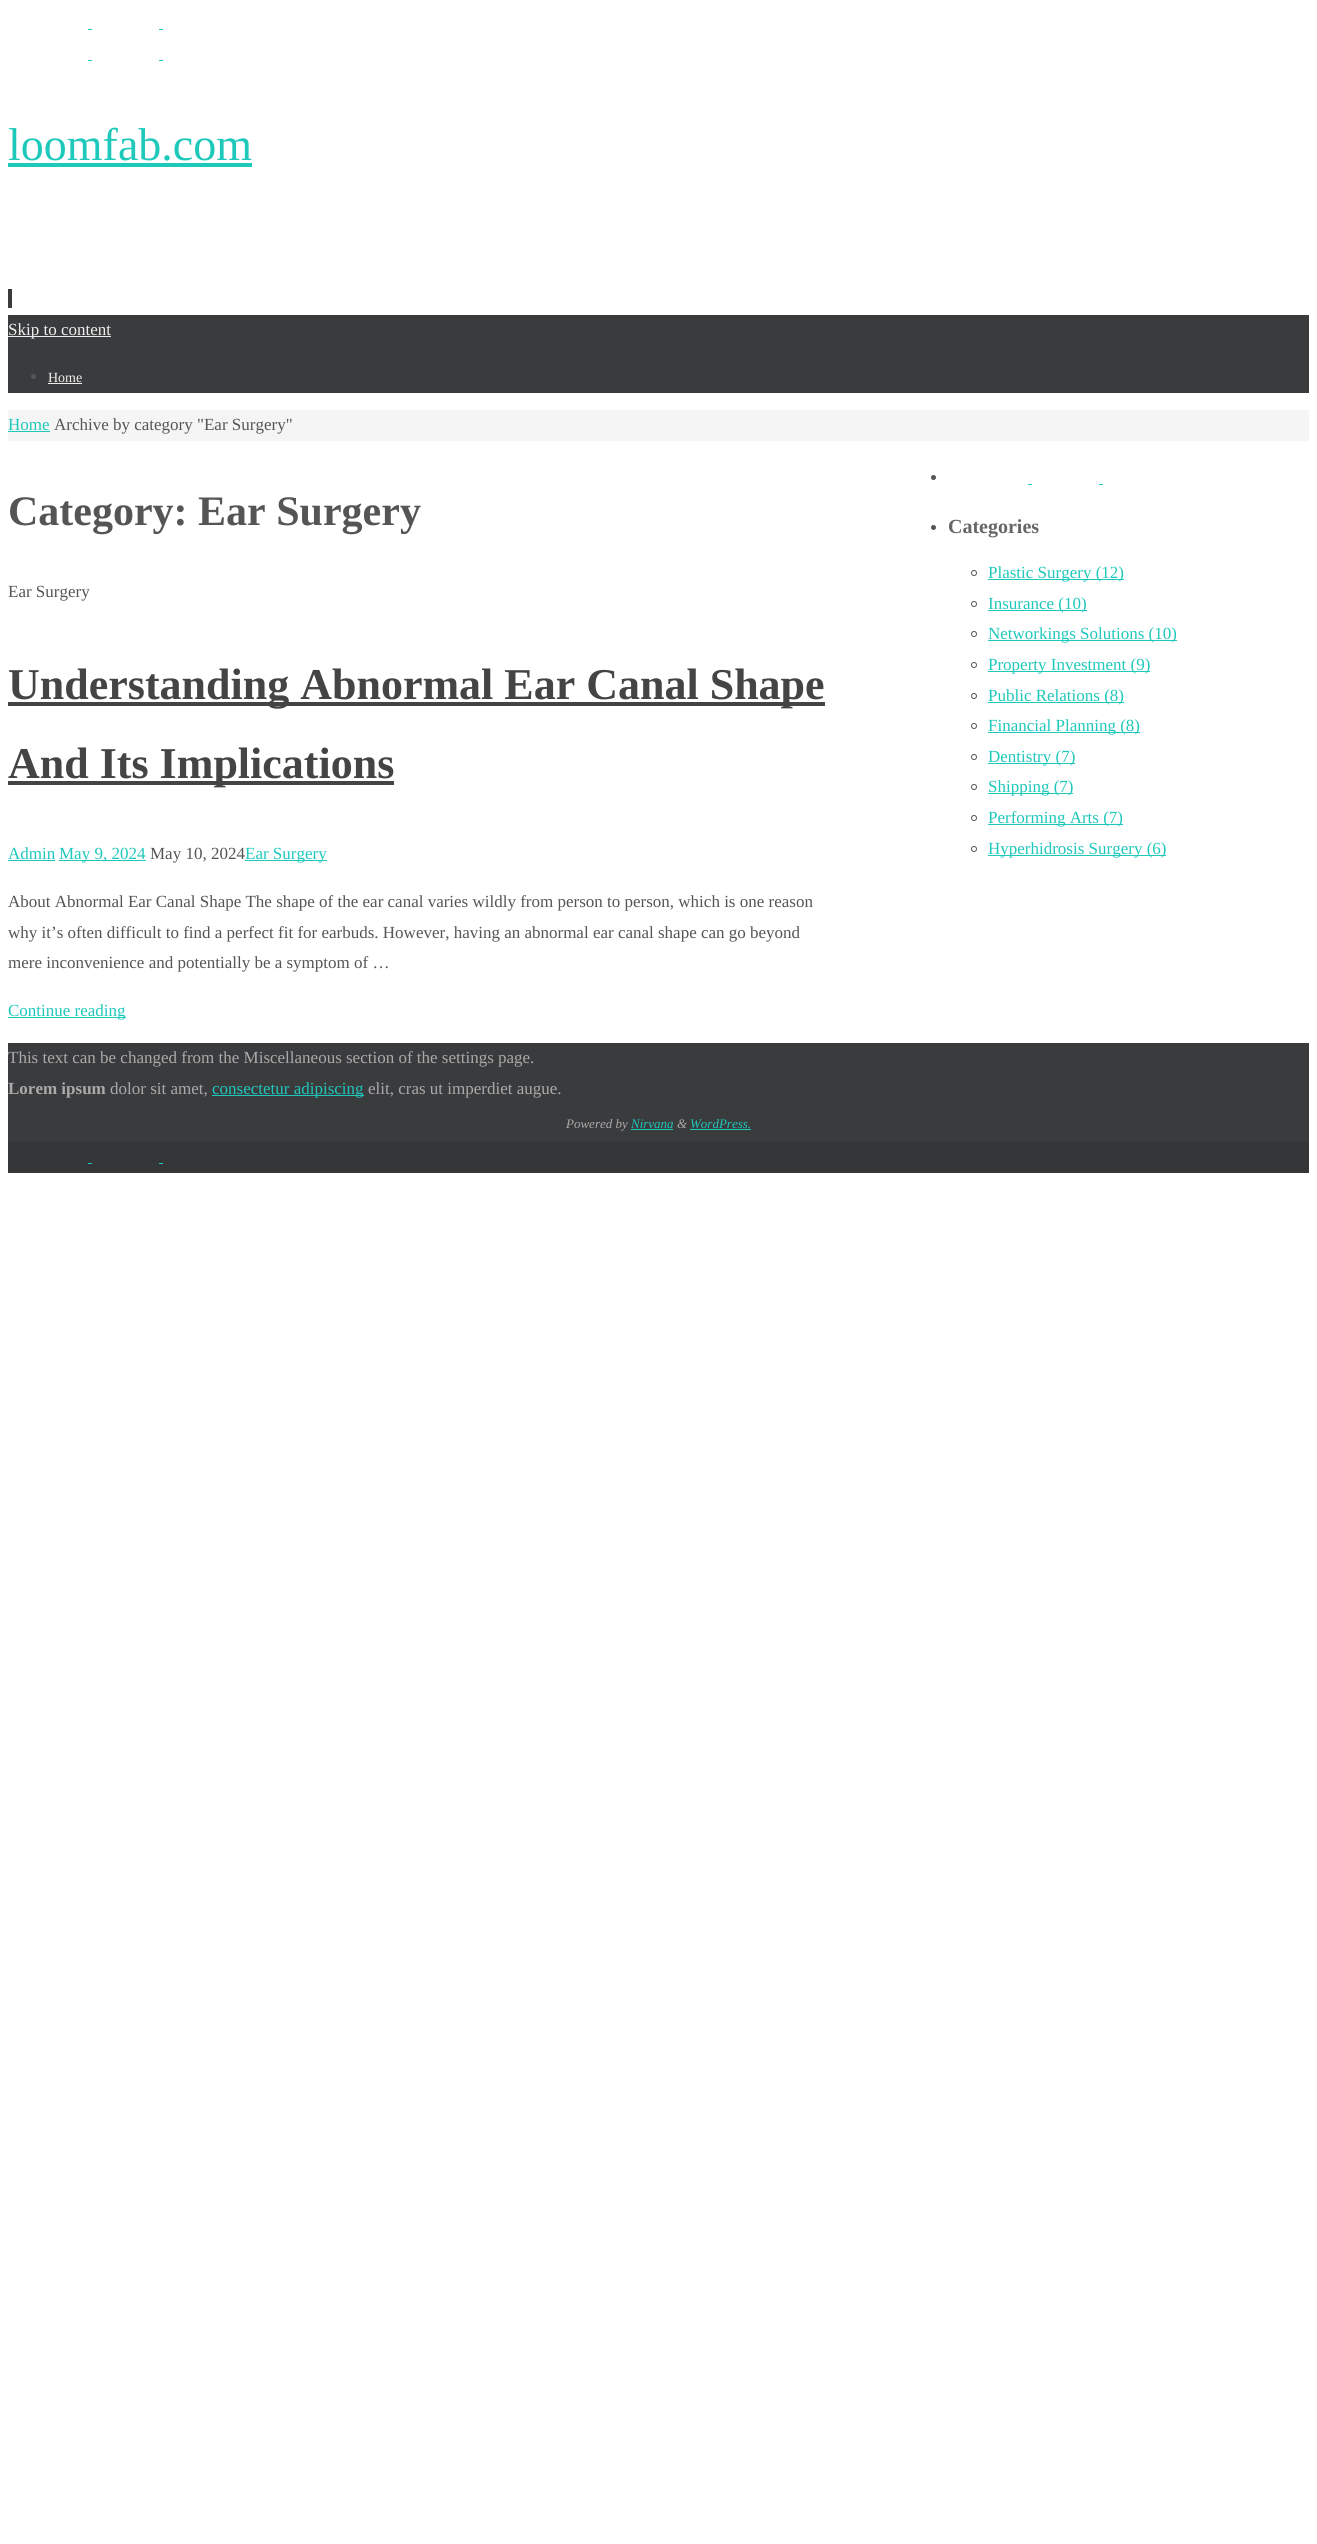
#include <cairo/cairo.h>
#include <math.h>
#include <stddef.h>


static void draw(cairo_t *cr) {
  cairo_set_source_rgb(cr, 1, 1, 1);
  cairo_paint(cr);
  cairo_set_source_rgb(cr, 30 / 255.0, 200 / 255.0, 187 / 255.0);
  cairo_rectangle(cr, 88, 29, 4, 1);
  cairo_fill(cr);
  cairo_rectangle(cr, 159, 29, 4, 1);
  cairo_fill(cr);
  cairo_rectangle(cr, 88, 60, 4, 1);
  cairo_fill(cr);
  cairo_rectangle(cr, 159, 60, 4, 1);
  cairo_fill(cr);
  cairo_rectangle(cr, 8, 163, 244, 4);
  cairo_fill(cr);
  cairo_set_source_rgb(cr, 58 / 255.0, 59 / 255.0, 61 / 255.0);
  cairo_rectangle(cr, 8, 289, 4, 19);
  cairo_fill(cr);
  cairo_rectangle(cr, 8, 315, 1301, 78);
  cairo_fill(cr);
  cairo_set_source_rgb(cr, 238 / 255.0, 238 / 255.0, 238 / 255.0);
  cairo_rectangle(cr, 8, 336, 103, 1);
  cairo_fill(cr);
  cairo_set_source_rgb(cr, 85 / 255.0, 85 / 255.0, 85 / 255.0);
  cairo_arc(cr, 33.5, 376.5, 2.5, 0, 2 * M_PI);
  cairo_fill(cr);
  cairo_set_source_rgb(cr, 238 / 255.0, 238 / 255.0, 238 / 255.0);
  cairo_rectangle(cr, 48, 383, 34, 1);
  cairo_fill(cr);
  cairo_set_source_rgb(cr, 245 / 255.0, 245 / 255.0, 245 / 255.0);
  cairo_rectangle(cr, 8, 410, 1301, 31);
  cairo_fill(cr);
  cairo_set_source_rgb(cr, 30 / 255.0, 200 / 255.0, 187 / 255.0);
  cairo_rectangle(cr, 8, 431, 42, 1);
  cairo_fill(cr);
  cairo_set_source_rgb(cr, 68 / 255.0, 68 / 255.0, 68 / 255.0);
  cairo_rectangle(cr, 8, 702, 817, 4);
  cairo_fill(cr);
  cairo_rectangle(cr, 8, 781, 386, 4);
  cairo_fill(cr);
  cairo_set_source_rgb(cr, 30 / 255.0, 200 / 255.0, 187 / 255.0);
  cairo_rectangle(cr, 8, 860, 47, 1);
  cairo_fill(cr);
  cairo_rectangle(cr, 59, 860, 87, 1);
  cairo_fill(cr);
  cairo_rectangle(cr, 245, 860, 82, 1);
  cairo_fill(cr);
  cairo_rectangle(cr, 8, 1017, 118, 1);
  cairo_fill(cr);
  cairo_set_source_rgb(cr, 85 / 255.0, 85 / 255.0, 85 / 255.0);
  cairo_arc(cr, 933.5, 477.5, 2.5, 0, 2 * M_PI);
  cairo_fill(cr);
  cairo_set_source_rgb(cr, 30 / 255.0, 200 / 255.0, 187 / 255.0);
  cairo_rectangle(cr, 1028, 484, 4, 1);
  cairo_fill(cr);
  cairo_rectangle(cr, 1099, 484, 4, 1);
  cairo_fill(cr);
  cairo_set_source_rgb(cr, 85 / 255.0, 85 / 255.0, 85 / 255.0);
  cairo_arc(cr, 933.5, 527.5, 2.5, 0, 2 * M_PI);
  cairo_fill(cr);
  cairo_arc(cr, 974, 573, 2.5, 0, 2 * M_PI);
  cairo_set_line_width(cr, 1);
  cairo_stroke(cr);
  cairo_set_source_rgb(cr, 30 / 255.0, 200 / 255.0, 187 / 255.0);
  cairo_rectangle(cr, 988, 579, 136, 1);
  cairo_fill(cr);
  cairo_arc(cr, 974, 604, 2.5, 0, 2 * M_PI);
  cairo_set_source_rgb(cr, 85 / 255.0, 85 / 255.0, 85 / 255.0);
  cairo_stroke(cr);
  cairo_set_source_rgb(cr, 30 / 255.0, 200 / 255.0, 187 / 255.0);
  cairo_rectangle(cr, 988, 610, 99, 1);
  cairo_fill(cr);
  cairo_arc(cr, 974, 634, 2.5, 0, 2 * M_PI);
  cairo_set_source_rgb(cr, 85 / 255.0, 85 / 255.0, 85 / 255.0);
  cairo_stroke(cr);
  cairo_set_source_rgb(cr, 30 / 255.0, 200 / 255.0, 187 / 255.0);
  cairo_rectangle(cr, 988, 640, 189, 1);
  cairo_fill(cr);
  cairo_arc(cr, 974, 665, 2.5, 0, 2 * M_PI);
  cairo_set_source_rgb(cr, 85 / 255.0, 85 / 255.0, 85 / 255.0);
  cairo_stroke(cr);
  cairo_set_source_rgb(cr, 30 / 255.0, 200 / 255.0, 187 / 255.0);
  cairo_rectangle(cr, 988, 671, 162, 1);
  cairo_fill(cr);
  cairo_arc(cr, 974, 696, 2.5, 0, 2 * M_PI);
  cairo_set_source_rgb(cr, 85 / 255.0, 85 / 255.0, 85 / 255.0);
  cairo_stroke(cr);
  cairo_set_source_rgb(cr, 30 / 255.0, 200 / 255.0, 187 / 255.0);
  cairo_rectangle(cr, 988, 702, 136, 1);
  cairo_fill(cr);
  cairo_arc(cr, 974, 726, 2.5, 0, 2 * M_PI);
  cairo_set_source_rgb(cr, 85 / 255.0, 85 / 255.0, 85 / 255.0);
  cairo_stroke(cr);
  cairo_set_source_rgb(cr, 30 / 255.0, 200 / 255.0, 187 / 255.0);
  cairo_rectangle(cr, 988, 732, 152, 1);
  cairo_fill(cr);
  cairo_arc(cr, 974, 757, 2.5, 0, 2 * M_PI);
  cairo_set_source_rgb(cr, 85 / 255.0, 85 / 255.0, 85 / 255.0);
  cairo_stroke(cr);
  cairo_set_source_rgb(cr, 30 / 255.0, 200 / 255.0, 187 / 255.0);
  cairo_rectangle(cr, 988, 763, 87, 1);
  cairo_fill(cr);
  cairo_arc(cr, 974, 787, 2.5, 0, 2 * M_PI);
  cairo_set_source_rgb(cr, 85 / 255.0, 85 / 255.0, 85 / 255.0);
  cairo_stroke(cr);
  cairo_set_source_rgb(cr, 30 / 255.0, 200 / 255.0, 187 / 255.0);
  cairo_rectangle(cr, 988, 793, 85, 1);
  cairo_fill(cr);
  cairo_arc(cr, 974, 818, 2.5, 0, 2 * M_PI);
  cairo_set_source_rgb(cr, 85 / 255.0, 85 / 255.0, 85 / 255.0);
  cairo_stroke(cr);
  cairo_set_source_rgb(cr, 30 / 255.0, 200 / 255.0, 187 / 255.0);
  cairo_rectangle(cr, 988, 824, 135, 1);
  cairo_fill(cr);
  cairo_arc(cr, 974, 849, 2.5, 0, 2 * M_PI);
  cairo_set_source_rgb(cr, 85 / 255.0, 85 / 255.0, 85 / 255.0);
  cairo_stroke(cr);
  cairo_set_source_rgb(cr, 30 / 255.0, 200 / 255.0, 187 / 255.0);
  cairo_rectangle(cr, 988, 855, 178, 1);
  cairo_fill(cr);
  cairo_set_source_rgb(cr, 58 / 255.0, 59 / 255.0, 61 / 255.0);
  cairo_rectangle(cr, 8, 1043, 1301, 99);
  cairo_fill(cr);
  cairo_set_source_rgb(cr, 30 / 255.0, 200 / 255.0, 187 / 255.0);
  cairo_rectangle(cr, 212, 1095, 152, 1);
  cairo_fill(cr);
  cairo_rectangle(cr, 631, 1129, 42, 1);
  cairo_fill(cr);
  cairo_rectangle(cr, 690, 1129, 61, 1);
  cairo_fill(cr);
  cairo_set_source_rgb(cr, 53 / 255.0, 54 / 255.0, 56 / 255.0);
  cairo_rectangle(cr, 8, 1142, 1301, 31);
  cairo_fill(cr);
  cairo_set_source_rgb(cr, 30 / 255.0, 200 / 255.0, 187 / 255.0);
  cairo_rectangle(cr, 88, 1163, 4, 1);
  cairo_fill(cr);
  cairo_rectangle(cr, 159, 1163, 4, 1);
  cairo_fill(cr);
  cairo_select_font_face(cr, "Liberation Serif", CAIRO_FONT_SLANT_NORMAL, CAIRO_FONT_WEIGHT_NORMAL);
  cairo_set_font_size(cr, 46);
  cairo_move_to(cr, 8, 160);
  cairo_show_text(cr, "loomfab.com");
  cairo_set_font_size(cr, 17);
  cairo_set_source_rgb(cr, 238 / 255.0, 238 / 255.0, 238 / 255.0);
  cairo_move_to(cr, 8, 335);
  cairo_show_text(cr, "Skip to content");
  cairo_set_font_size(cr, 14);
  cairo_move_to(cr, 48, 382);
  cairo_show_text(cr, "Home");
  cairo_set_font_size(cr, 17);
  cairo_set_source_rgb(cr, 30 / 255.0, 200 / 255.0, 187 / 255.0);
  cairo_move_to(cr, 8, 430);
  cairo_show_text(cr, "Home");
  cairo_set_source_rgb(cr, 85 / 255.0, 85 / 255.0, 85 / 255.0);
  cairo_move_to(cr, 54, 430);
  cairo_show_text(cr, "Archive by category \"Ear Surgery\"");
  cairo_select_font_face(cr, "Liberation Serif", CAIRO_FONT_SLANT_NORMAL, CAIRO_FONT_WEIGHT_BOLD);
  cairo_set_font_size(cr, 42);
  cairo_move_to(cr, 8, 525);
  cairo_show_text(cr, "Category: Ear Surgery");
  cairo_select_font_face(cr, "Liberation Serif", CAIRO_FONT_SLANT_NORMAL, CAIRO_FONT_WEIGHT_NORMAL);
  cairo_set_font_size(cr, 17);
  cairo_move_to(cr, 8, 597);
  cairo_show_text(cr, "Ear Surgery");
  cairo_select_font_face(cr, "Liberation Serif", CAIRO_FONT_SLANT_NORMAL, CAIRO_FONT_WEIGHT_BOLD);
  cairo_set_font_size(cr, 44);
  cairo_set_source_rgb(cr, 68 / 255.0, 68 / 255.0, 68 / 255.0);
  cairo_move_to(cr, 8, 699);
  cairo_show_text(cr, "Understanding Abnormal Ear Canal Shape");
  cairo_move_to(cr, 8, 778);
  cairo_show_text(cr, "And Its Implications");
  cairo_select_font_face(cr, "Liberation Serif", CAIRO_FONT_SLANT_NORMAL, CAIRO_FONT_WEIGHT_NORMAL);
  cairo_set_font_size(cr, 17);
  cairo_set_source_rgb(cr, 30 / 255.0, 200 / 255.0, 187 / 255.0);
  cairo_move_to(cr, 8, 859);
  cairo_show_text(cr, "Admin");
  cairo_move_to(cr, 59, 859);
  cairo_show_text(cr, "May 9, 2024");
  cairo_set_source_rgb(cr, 85 / 255.0, 85 / 255.0, 85 / 255.0);
  cairo_move_to(cr, 150, 859);
  cairo_show_text(cr, "May 10, 2024");
  cairo_set_source_rgb(cr, 30 / 255.0, 200 / 255.0, 187 / 255.0);
  cairo_move_to(cr, 245, 859);
  cairo_show_text(cr, "Ear Surgery");
  cairo_set_source_rgb(cr, 85 / 255.0, 85 / 255.0, 85 / 255.0);
  cairo_move_to(cr, 8, 907);
  cairo_show_text(cr, "About Abnormal Ear Canal Shape The shape of the ear canal varies wildly from person to person, which is one reason");
  cairo_move_to(cr, 8, 938);
  cairo_show_text(cr, "why it’s often difficult to find a perfect fit for earbuds. However, having an abnormal ear canal shape can go beyond");
  cairo_move_to(cr, 8, 968);
  cairo_show_text(cr, "mere inconvenience and potentially be a symptom of …");
  cairo_set_source_rgb(cr, 30 / 255.0, 200 / 255.0, 187 / 255.0);
  cairo_move_to(cr, 8, 1016);
  cairo_show_text(cr, "Continue reading");
  cairo_select_font_face(cr, "Liberation Serif", CAIRO_FONT_SLANT_NORMAL, CAIRO_FONT_WEIGHT_BOLD);
  cairo_set_font_size(cr, 20);
  cairo_set_source_rgb(cr, 102 / 255.0, 102 / 255.0, 102 / 255.0);
  cairo_move_to(cr, 948, 533);
  cairo_show_text(cr, "Categories");
  cairo_select_font_face(cr, "Liberation Serif", CAIRO_FONT_SLANT_NORMAL, CAIRO_FONT_WEIGHT_NORMAL);
  cairo_set_font_size(cr, 17);
  cairo_set_source_rgb(cr, 30 / 255.0, 200 / 255.0, 187 / 255.0);
  cairo_move_to(cr, 988, 578);
  cairo_show_text(cr, "Plastic Surgery (12)");
  cairo_move_to(cr, 988, 609);
  cairo_show_text(cr, "Insurance (10)");
  cairo_move_to(cr, 988, 639);
  cairo_show_text(cr, "Networkings Solutions (10)");
  cairo_move_to(cr, 988, 670);
  cairo_show_text(cr, "Property Investment (9)");
  cairo_move_to(cr, 988, 701);
  cairo_show_text(cr, "Public Relations (8)");
  cairo_move_to(cr, 988, 731);
  cairo_show_text(cr, "Financial Planning (8)");
  cairo_move_to(cr, 988, 762);
  cairo_show_text(cr, "Dentistry (7)");
  cairo_move_to(cr, 988, 792);
  cairo_show_text(cr, "Shipping (7)");
  cairo_move_to(cr, 988, 823);
  cairo_show_text(cr, "Performing Arts (7)");
  cairo_move_to(cr, 988, 854);
  cairo_show_text(cr, "Hyperhidrosis Surgery (6)");
  cairo_set_source_rgb(cr, 170 / 255.0, 170 / 255.0, 170 / 255.0);
  cairo_move_to(cr, 8, 1063);
  cairo_show_text(cr, "This text can be changed from the Miscellaneous section of the settings page.");
  cairo_select_font_face(cr, "Liberation Serif", CAIRO_FONT_SLANT_NORMAL, CAIRO_FONT_WEIGHT_BOLD);
  cairo_move_to(cr, 8, 1094);
  cairo_show_text(cr, "Lorem ipsum");
  cairo_select_font_face(cr, "Liberation Serif", CAIRO_FONT_SLANT_NORMAL, CAIRO_FONT_WEIGHT_NORMAL);
  cairo_move_to(cr, 110, 1094);
  cairo_show_text(cr, "dolor sit amet,");
  cairo_set_source_rgb(cr, 30 / 255.0, 200 / 255.0, 187 / 255.0);
  cairo_move_to(cr, 212, 1094);
  cairo_show_text(cr, "consectetur adipiscing");
  cairo_set_source_rgb(cr, 170 / 255.0, 170 / 255.0, 170 / 255.0);
  cairo_move_to(cr, 368, 1094);
  cairo_show_text(cr, "elit, cras ut imperdiet augue.");
  cairo_select_font_face(cr, "Liberation Serif", CAIRO_FONT_SLANT_ITALIC, CAIRO_FONT_WEIGHT_NORMAL);
  cairo_set_font_size(cr, 13);
  cairo_move_to(cr, 566, 1128);
  cairo_show_text(cr, "Powered by");
  cairo_set_source_rgb(cr, 30 / 255.0, 200 / 255.0, 187 / 255.0);
  cairo_move_to(cr, 631, 1128);
  cairo_show_text(cr, "Nirvana");
  cairo_set_source_rgb(cr, 170 / 255.0, 170 / 255.0, 170 / 255.0);
  cairo_move_to(cr, 677, 1128);
  cairo_show_text(cr, "&");
  cairo_set_source_rgb(cr, 30 / 255.0, 200 / 255.0, 187 / 255.0);
  cairo_move_to(cr, 690, 1128);
  cairo_show_text(cr, "WordPress.");
}

int main(void) {
  cairo_surface_t *surface = cairo_image_surface_create(CAIRO_FORMAT_RGB24, 1317, 2544);
  cairo_t *cr = cairo_create(surface);
  cairo_font_options_t *options = cairo_font_options_create();
  cairo_font_options_set_hint_metrics(options, CAIRO_HINT_METRICS_OFF);
  cairo_font_options_set_hint_style(options, CAIRO_HINT_STYLE_NONE);
  cairo_set_font_options(cr, options);
  cairo_set_miter_limit(cr, 4);
  draw(cr);
  cairo_surface_write_to_png(surface, "out.png");
  cairo_font_options_destroy(options);
  cairo_destroy(cr);
  cairo_surface_destroy(surface);
  return 0;
}
